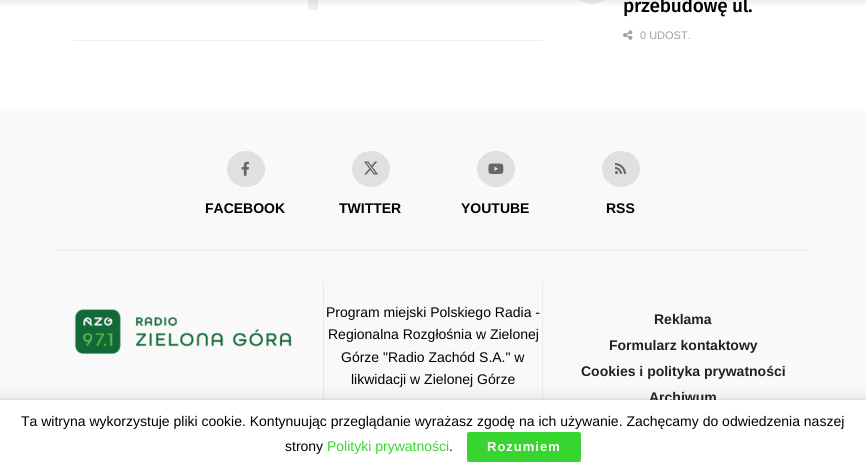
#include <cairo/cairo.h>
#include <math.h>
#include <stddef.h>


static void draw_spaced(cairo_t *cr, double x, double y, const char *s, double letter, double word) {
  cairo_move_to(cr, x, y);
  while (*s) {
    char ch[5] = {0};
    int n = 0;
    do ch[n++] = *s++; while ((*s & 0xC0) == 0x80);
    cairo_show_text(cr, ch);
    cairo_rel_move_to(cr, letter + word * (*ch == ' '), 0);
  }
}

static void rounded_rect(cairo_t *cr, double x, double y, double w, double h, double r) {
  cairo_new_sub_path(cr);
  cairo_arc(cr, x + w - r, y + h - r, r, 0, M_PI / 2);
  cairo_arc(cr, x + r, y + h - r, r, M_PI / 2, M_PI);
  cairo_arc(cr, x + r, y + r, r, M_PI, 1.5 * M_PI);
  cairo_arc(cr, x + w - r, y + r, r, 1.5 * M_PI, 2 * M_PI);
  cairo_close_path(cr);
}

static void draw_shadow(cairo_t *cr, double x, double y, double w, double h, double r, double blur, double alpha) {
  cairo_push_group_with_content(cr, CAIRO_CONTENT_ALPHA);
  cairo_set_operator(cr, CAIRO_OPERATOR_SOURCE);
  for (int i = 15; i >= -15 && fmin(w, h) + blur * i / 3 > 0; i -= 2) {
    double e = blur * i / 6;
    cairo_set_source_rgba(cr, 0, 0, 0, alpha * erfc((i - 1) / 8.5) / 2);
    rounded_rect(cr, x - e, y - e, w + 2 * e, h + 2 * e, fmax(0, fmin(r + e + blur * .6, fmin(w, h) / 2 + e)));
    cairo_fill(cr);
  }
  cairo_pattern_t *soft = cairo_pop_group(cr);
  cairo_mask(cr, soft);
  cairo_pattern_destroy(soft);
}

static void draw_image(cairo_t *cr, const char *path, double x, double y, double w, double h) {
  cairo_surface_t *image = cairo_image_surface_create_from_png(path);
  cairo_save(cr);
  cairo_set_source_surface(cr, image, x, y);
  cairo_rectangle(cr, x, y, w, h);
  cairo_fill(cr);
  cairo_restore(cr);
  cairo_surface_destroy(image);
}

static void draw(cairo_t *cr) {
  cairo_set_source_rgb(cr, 1, 1, 1);
  cairo_paint(cr);
  cairo_set_source_rgb(cr, 238 / 255.0, 238 / 255.0, 238 / 255.0);
  cairo_rectangle(cr, 308, 0, 10, 10);
  cairo_fill(cr);
  rounded_rect(cr, 573, -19, 38, 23, 19);
  cairo_fill(cr);
  cairo_set_source_rgb(cr, 0, 0, 0);
  draw_shadow(cr, 0, -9, 866, 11, 0, 3, 0.1);
  cairo_set_source_rgb(cr, 238 / 255.0, 238 / 255.0, 238 / 255.0);
  cairo_rectangle(cr, 73, 40, 470, 1);
  cairo_fill(cr);
  draw_image(cr, "images/1.png", 623, 30, 10, 10);
  cairo_set_source_rgb(cr, 249 / 255.0, 249 / 255.0, 249 / 255.0);
  cairo_rectangle(cr, 0, 111, 866, 289);
  cairo_fill(cr);
  cairo_set_source_rgb(cr, 224 / 255.0, 224 / 255.0, 224 / 255.0);
  cairo_new_path(cr);
  cairo_move_to(cr, 246, 151);
  cairo_curve_to(cr, 256.5, 151, 265, 159, 265, 169);
  cairo_curve_to(cr, 265, 179, 256.5, 187, 246, 187);
  cairo_curve_to(cr, 235.5, 187, 227, 179, 227, 169);
  cairo_curve_to(cr, 227, 159, 235.5, 151, 246, 151);
  cairo_close_path(cr);
  cairo_fill(cr);
  draw_image(cr, "images/2.png", 241, 161, 9, 15);
  cairo_new_path(cr);
  cairo_move_to(cr, 371, 151);
  cairo_curve_to(cr, 381.5, 151, 390, 159, 390, 169);
  cairo_curve_to(cr, 390, 179, 381.5, 187, 371, 187);
  cairo_curve_to(cr, 360.5, 187, 352, 179, 352, 169);
  cairo_curve_to(cr, 352, 159, 360.5, 151, 371, 151);
  cairo_close_path(cr);
  cairo_fill(cr);
  draw_image(cr, "images/3.png", 364, 161, 15, 14);
  cairo_new_path(cr);
  cairo_move_to(cr, 496, 151);
  cairo_curve_to(cr, 506.5, 151, 515, 159, 515, 169);
  cairo_curve_to(cr, 515, 179, 506.5, 187, 496, 187);
  cairo_curve_to(cr, 485.5, 187, 477, 179, 477, 169);
  cairo_curve_to(cr, 477, 159, 485.5, 151, 496, 151);
  cairo_close_path(cr);
  cairo_fill(cr);
  draw_image(cr, "images/4.png", 488, 163, 16, 11);
  cairo_new_path(cr);
  cairo_move_to(cr, 621, 151);
  cairo_curve_to(cr, 631.5, 151, 640, 159, 640, 169);
  cairo_curve_to(cr, 640, 179, 631.5, 187, 621, 187);
  cairo_curve_to(cr, 610.5, 187, 602, 179, 602, 169);
  cairo_curve_to(cr, 602, 159, 610.5, 151, 621, 151);
  cairo_close_path(cr);
  cairo_fill(cr);
  draw_image(cr, "images/5.png", 615, 163, 11, 11);
  cairo_set_source_rgb(cr, 234 / 255.0, 234 / 255.0, 234 / 255.0);
  cairo_rectangle(cr, 58, 250, 750, 1);
  cairo_fill(cr);
  draw_image(cr, "images/6.png", 74, 309, 218, 45);
  cairo_rectangle(cr, 542, 281, 1, 119);
  cairo_fill(cr);
  cairo_rectangle(cr, 323, 281, 1, 119);
  cairo_fill(cr);
  cairo_set_source_rgb(cr, 0, 0, 0);
  draw_shadow(cr, 0, 402, 866, 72, 0, 10, 0.15);
  draw_shadow(cr, 0, 400, 866, 72, 0, 0.5, 0.2);
  cairo_select_font_face(cr, "Fira Sans Medium", CAIRO_FONT_SLANT_NORMAL, CAIRO_FONT_WEIGHT_NORMAL);
  cairo_set_font_size(cr, 19);
  cairo_set_source_rgb(cr, 0, 0, 0);
  draw_spaced(cr, 623, 12, "przebudowę ul.", -0.25, 0);
  cairo_select_font_face(cr, "Liberation Sans", CAIRO_FONT_SLANT_NORMAL, CAIRO_FONT_WEIGHT_NORMAL);
  cairo_set_font_size(cr, 11);
  cairo_set_source_rgb(cr, 160 / 255.0, 160 / 255.0, 160 / 255.0);
  cairo_move_to(cr, 640, 39);
  cairo_show_text(cr, "0 UDOST.");
  cairo_select_font_face(cr, "Liberation Sans", CAIRO_FONT_SLANT_NORMAL, CAIRO_FONT_WEIGHT_BOLD);
  cairo_set_font_size(cr, 14);
  cairo_set_source_rgb(cr, 0, 0, 0);
  cairo_move_to(cr, 205, 213);
  cairo_show_text(cr, "FACEBOOK");
  cairo_move_to(cr, 339, 213);
  cairo_show_text(cr, "TWITTER");
  cairo_move_to(cr, 461, 213);
  cairo_show_text(cr, "YOUTUBE");
  cairo_move_to(cr, 606, 213);
  cairo_show_text(cr, "RSS");
  cairo_select_font_face(cr, "Liberation Sans", CAIRO_FONT_SLANT_NORMAL, CAIRO_FONT_WEIGHT_NORMAL);
  cairo_move_to(cr, 326, 317);
  cairo_show_text(cr, "Program miejski Polskiego Radia -");
  cairo_move_to(cr, 328, 339);
  cairo_show_text(cr, "Regionalna Rozgłośnia w Zielonej");
  cairo_move_to(cr, 341, 362);
  cairo_show_text(cr, "Górze \"Radio Zachód S.A.\" w");
  cairo_move_to(cr, 351, 384);
  cairo_show_text(cr, "likwidacji w Zielonej Górze");
  cairo_select_font_face(cr, "Liberation Sans", CAIRO_FONT_SLANT_NORMAL, CAIRO_FONT_WEIGHT_BOLD);
  cairo_set_source_rgb(cr, 33 / 255.0, 33 / 255.0, 33 / 255.0);
  cairo_move_to(cr, 654, 324);
  cairo_show_text(cr, "Reklama");
  cairo_move_to(cr, 609, 350);
  cairo_show_text(cr, "Formularz kontaktowy");
  cairo_move_to(cr, 581, 376);
  cairo_show_text(cr, "Cookies i polityka prywatności");
  cairo_move_to(cr, 649, 402);
  cairo_show_text(cr, "Archiwum");
  cairo_set_source_rgb(cr, 1, 1, 1);
  cairo_rectangle(cr, 0, 400, 866, 72);
  cairo_fill(cr);
  cairo_select_font_face(cr, "Liberation Sans", CAIRO_FONT_SLANT_NORMAL, CAIRO_FONT_WEIGHT_NORMAL);
  cairo_set_source_rgb(cr, 0, 0, 0);
  cairo_move_to(cr, 21, 426);
  cairo_show_text(cr, "Ta witryna wykorzystuje pliki cookie. Kontynuując przeglądanie wyrażasz zgodę na ich używanie. Zachęcamy do odwiedzenia naszej");
  cairo_move_to(cr, 285, 451);
  cairo_show_text(cr, "strony");
  cairo_set_source_rgb(cr, 56 / 255.0, 212 / 255.0, 48 / 255.0);
  cairo_move_to(cr, 327, 451);
  cairo_show_text(cr, "Polityki prywatności");
  cairo_set_source_rgb(cr, 0, 0, 0);
  cairo_move_to(cr, 449, 451);
  cairo_show_text(cr, ".");
  cairo_set_source_rgb(cr, 56 / 255.0, 212 / 255.0, 48 / 255.0);
  rounded_rect(cr, 467, 432, 114, 30, 2);
  cairo_fill(cr);
  cairo_select_font_face(cr, "Liberation Sans", CAIRO_FONT_SLANT_NORMAL, CAIRO_FONT_WEIGHT_BOLD);
  cairo_set_font_size(cr, 13);
  cairo_set_source_rgb(cr, 1, 1, 1);
  draw_spaced(cr, 487, 451, "Rozumiem", 1, 0);
}

int main(void) {
  cairo_surface_t *surface = cairo_image_surface_create(CAIRO_FORMAT_RGB24, 866, 472);
  cairo_t *cr = cairo_create(surface);
  cairo_font_options_t *options = cairo_font_options_create();
  cairo_font_options_set_hint_metrics(options, CAIRO_HINT_METRICS_OFF);
  cairo_font_options_set_hint_style(options, CAIRO_HINT_STYLE_NONE);
  cairo_set_font_options(cr, options);
  cairo_set_miter_limit(cr, 4);
  draw(cr);
  cairo_surface_write_to_png(surface, "out.png");
  cairo_font_options_destroy(options);
  cairo_destroy(cr);
  cairo_surface_destroy(surface);
  return 0;
}
